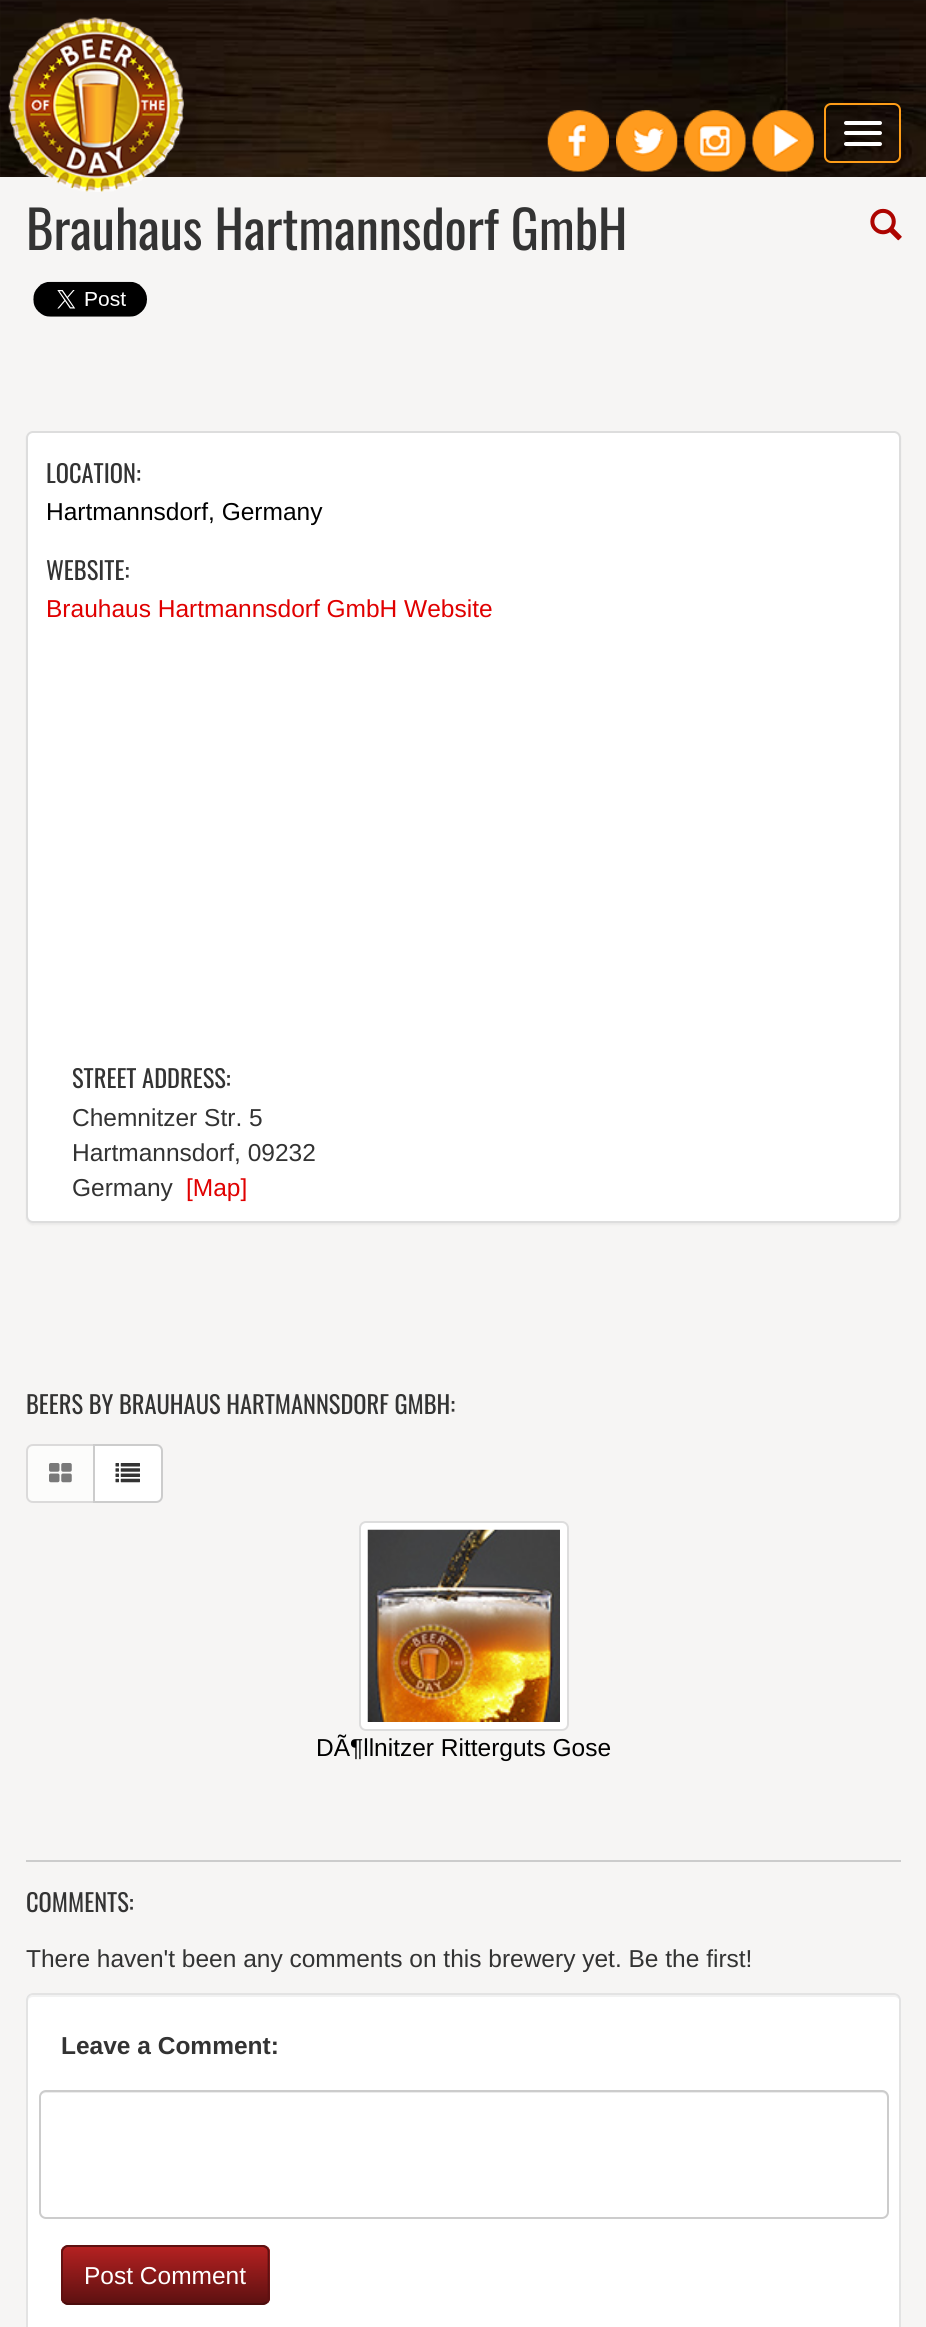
#include <cairo/cairo.h>
#include <math.h>
#include <stddef.h>


static void rounded_rect(cairo_t *cr, double x, double y, double w, double h, double r) {
  cairo_new_sub_path(cr);
  cairo_arc(cr, x + w - r, y + h - r, r, 0, M_PI / 2);
  cairo_arc(cr, x + r, y + h - r, r, M_PI / 2, M_PI);
  cairo_arc(cr, x + r, y + r, r, M_PI, 1.5 * M_PI);
  cairo_arc(cr, x + w - r, y + r, r, 1.5 * M_PI, 2 * M_PI);
  cairo_close_path(cr);
}

static void draw_shadow(cairo_t *cr, double x, double y, double w, double h, double r, double blur, double alpha) {
  cairo_push_group_with_content(cr, CAIRO_CONTENT_ALPHA);
  cairo_set_operator(cr, CAIRO_OPERATOR_SOURCE);
  for (int i = 15; i >= -15 && fmin(w, h) + blur * i / 3 > 0; i -= 2) {
    double e = blur * i / 6;
    cairo_set_source_rgba(cr, 0, 0, 0, alpha * erfc((i - 1) / 8.5) / 2);
    rounded_rect(cr, x - e, y - e, w + 2 * e, h + 2 * e, fmax(0, fmin(r + e + blur * .6, fmin(w, h) / 2 + e)));
    cairo_fill(cr);
  }
  cairo_pattern_t *soft = cairo_pop_group(cr);
  cairo_mask(cr, soft);
  cairo_pattern_destroy(soft);
}

static void draw_image(cairo_t *cr, const char *path, double x, double y, double w, double h) {
  cairo_surface_t *image = cairo_image_surface_create_from_png(path);
  cairo_save(cr);
  cairo_set_source_surface(cr, image, x, y);
  cairo_rectangle(cr, x, y, w, h);
  cairo_fill(cr);
  cairo_restore(cr);
  cairo_surface_destroy(image);
}

static void draw(cairo_t *cr) {
  cairo_pattern_t *gradient;
  cairo_set_source_rgb(cr, 1, 1, 1);
  cairo_paint(cr);
  draw_image(cr, "images/1.png", 0, 0, 926, 177);
  cairo_set_source_rgb(cr, 246 / 255.0, 245 / 255.0, 244 / 255.0);
  cairo_rectangle(cr, 0, 177, 926, 2150);
  cairo_fill(cr);
  draw_image(cr, "images/2.png", 8, 17, 176, 175);
  draw_image(cr, "images/3.png", 547, 110, 62, 62);
  draw_image(cr, "images/4.png", 616, 110, 62, 62);
  draw_image(cr, "images/5.png", 684, 110, 62, 62);
  draw_image(cr, "images/6.png", 752, 110, 62, 62);
  rounded_rect(cr, 825, 104, 75, 58, 6);
  cairo_set_source_rgb(cr, 254 / 255.0, 157 / 255.0, 24 / 255.0);
  cairo_stroke(cr);
  cairo_set_source_rgb(cr, 1, 1, 1);
  rounded_rect(cr, 844, 121, 38, 4, 2);
  cairo_fill(cr);
  rounded_rect(cr, 844, 131, 38, 4, 2);
  cairo_fill(cr);
  rounded_rect(cr, 844, 142, 38, 4, 2);
  cairo_fill(cr);
  draw_image(cr, "images/7.png", 870, 208, 32, 33);
  draw_image(cr, "images/8.png", 33, 281, 114, 36);
  cairo_set_source_rgb(cr, 0, 0, 0);
  draw_shadow(cr, 26, 432, 875, 793, 7, 1, 0.05);
  cairo_set_source_rgb(cr, 1, 1, 1);
  rounded_rect(cr, 27, 432, 873, 790, 6);
  cairo_fill_preserve(cr);
  cairo_set_source_rgb(cr, 221 / 255.0, 221 / 255.0, 221 / 255.0);
  cairo_stroke(cr);
  cairo_set_source_rgb(cr, 252 / 255.0, 252 / 255.0, 251 / 255.0);
  cairo_new_path(cr);
  cairo_move_to(cr, 33, 1445);
  cairo_line_to(cr, 94, 1445);
  cairo_line_to(cr, 94, 1502);
  cairo_line_to(cr, 33, 1502);
  cairo_curve_to(cr, 29.5, 1502, 27, 1499.5, 27, 1496);
  cairo_line_to(cr, 27, 1451);
  cairo_curve_to(cr, 27, 1447.5, 29.5, 1445, 33, 1445);
  cairo_close_path(cr);
  cairo_fill_preserve(cr);
  cairo_set_source_rgb(cr, 219 / 255.0, 218 / 255.0, 218 / 255.0);
  cairo_stroke(cr);
  draw_image(cr, "images/9.png", 49, 1463, 23, 20);
  cairo_set_source_rgb(cr, 1, 1, 1);
  cairo_new_path(cr);
  cairo_move_to(cr, 94, 1445);
  cairo_line_to(cr, 156, 1445);
  cairo_curve_to(cr, 159.5, 1445, 162, 1447.5, 162, 1451);
  cairo_line_to(cr, 162, 1496);
  cairo_curve_to(cr, 162, 1499.5, 159.5, 1502, 156, 1502);
  cairo_line_to(cr, 94, 1502);
  cairo_close_path(cr);
  cairo_fill_preserve(cr);
  cairo_set_source_rgb(cr, 204 / 255.0, 204 / 255.0, 204 / 255.0);
  cairo_stroke(cr);
  draw_image(cr, "images/10.png", 115, 1463, 25, 20);
  cairo_set_source_rgb(cr, 1, 1, 1);
  rounded_rect(cr, 360, 1522, 208, 208, 6);
  cairo_fill_preserve(cr);
  cairo_set_source_rgb(cr, 221 / 255.0, 221 / 255.0, 221 / 255.0);
  cairo_stroke(cr);
  draw_image(cr, "images/11.png", 367, 1529, 193, 193);
  cairo_set_source_rgb(cr, 204 / 255.0, 204 / 255.0, 204 / 255.0);
  cairo_rectangle(cr, 26, 1860, 875, 2);
  cairo_fill(cr);
  cairo_set_source_rgb(cr, 1, 1, 1);
  rounded_rect(cr, 26, 1993, 875, 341, 7);
  cairo_fill(cr);
  cairo_set_source_rgb(cr, 242 / 255.0, 242 / 255.0, 242 / 255.0);
  cairo_new_path(cr);
  cairo_move_to(cr, 33, 1997);
  cairo_line_to(cr, 894, 1997);
  cairo_curve_to(cr, 897, 1997, 900, 1999, 900, 2002);
  cairo_line_to(cr, 900, 2000);
  cairo_curve_to(cr, 900, 1997, 898, 1995, 895, 1995);
  cairo_line_to(cr, 33, 1995);
  cairo_curve_to(cr, 30, 1995, 28, 1997, 28, 2000);
  cairo_line_to(cr, 28, 2002);
  cairo_curve_to(cr, 28, 1999, 30, 1997, 33, 1997);
  cairo_close_path(cr);
  cairo_fill(cr);
  rounded_rect(cr, 27, 1994, 873, 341, 6);
  cairo_set_source_rgb(cr, 227 / 255.0, 227 / 255.0, 227 / 255.0);
  cairo_stroke(cr);
  cairo_set_source_rgb(cr, 236 / 255.0, 236 / 255.0, 236 / 255.0);
  cairo_new_path(cr);
  cairo_move_to(cr, 46, 2093);
  cairo_line_to(cr, 882, 2093);
  cairo_curve_to(cr, 885, 2093, 887, 2095, 887, 2098);
  cairo_line_to(cr, 887, 2096);
  cairo_curve_to(cr, 887, 2093, 885, 2091, 882, 2091);
  cairo_line_to(cr, 45, 2091);
  cairo_curve_to(cr, 42, 2091, 40, 2093, 40, 2096);
  cairo_line_to(cr, 40, 2098);
  cairo_curve_to(cr, 40, 2095, 43, 2093, 46, 2093);
  cairo_close_path(cr);
  cairo_fill(cr);
  rounded_rect(cr, 40, 2091, 848, 127, 6);
  cairo_set_source_rgb(cr, 204 / 255.0, 204 / 255.0, 204 / 255.0);
  cairo_stroke(cr);
  cairo_set_source_rgb(cr, 95 / 255.0, 17 / 255.0, 17 / 255.0);
  rounded_rect(cr, 61, 2245, 209, 60, 7);
  cairo_fill(cr);
  cairo_save(cr);
  rounded_rect(cr, 61, 2245, 209, 60, 7);
  cairo_clip(cr);
  gradient = cairo_pattern_create_linear(165, 2247, 165, 2303);
  cairo_pattern_add_color_stop_rgba(gradient, 0, 180 / 255.0, 33 / 255.0, 33 / 255.0, 1);
  cairo_pattern_add_color_stop_rgba(gradient, 1, 94 / 255.0, 17 / 255.0, 17 / 255.0, 1);
  cairo_set_source(cr, gradient);
  cairo_pattern_destroy(gradient);
  cairo_rectangle(cr, 61, 2247, 209, 56);
  cairo_fill(cr);
  cairo_restore(cr);
  cairo_new_path(cr);
  cairo_move_to(cr, 267, 2302);
  cairo_curve_to(cr, 265.5, 2303, 264, 2304, 262.5, 2304);
  cairo_line_to(cr, 68, 2304);
  cairo_curve_to(cr, 66.5, 2304, 65, 2303, 64, 2302);
  cairo_set_source_rgb(cr, 73 / 255.0, 13 / 255.0, 13 / 255.0);
  cairo_set_line_width(cr, 1.8);
  cairo_stroke(cr);
  cairo_new_path(cr);
  cairo_move_to(cr, 64, 2302);
  cairo_curve_to(cr, 63, 2301, 62, 2299.5, 62, 2298);
  cairo_line_to(cr, 62, 2252);
  cairo_curve_to(cr, 62, 2250.5, 63, 2249, 64, 2248);
  cairo_curve_to(cr, 65, 2247, 66.5, 2246, 68, 2246);
  cairo_line_to(cr, 262.5, 2246);
  cairo_curve_to(cr, 264, 2246, 265.5, 2247, 267, 2248);
  cairo_curve_to(cr, 268, 2249, 268.5, 2250.5, 268.5, 2252);
  cairo_line_to(cr, 268.5, 2298);
  cairo_curve_to(cr, 268.5, 2299.5, 268, 2301, 267, 2302);
  cairo_set_source_rgb(cr, 94 / 255.0, 17 / 255.0, 17 / 255.0);
  cairo_stroke(cr);
  cairo_select_font_face(cr, "Oswald", CAIRO_FONT_SLANT_NORMAL, CAIRO_FONT_WEIGHT_NORMAL);
  cairo_set_font_size(cr, 52.5);
  cairo_set_source_rgb(cr, 51 / 255.0, 51 / 255.0, 51 / 255.0);
  cairo_move_to(cr, 26, 250);
  cairo_show_text(cr, "Brauhaus Hartmannsdorf GmbH");
  cairo_set_font_size(cr, 24.5);
  cairo_move_to(cr, 46, 483);
  cairo_show_text(cr, "LOCATION:");
  cairo_select_font_face(cr, "Liberation Sans", CAIRO_FONT_SLANT_NORMAL, CAIRO_FONT_WEIGHT_NORMAL);
  cairo_set_source_rgb(cr, 0, 0, 0);
  cairo_move_to(cr, 46, 520);
  cairo_show_text(cr, "Hartmannsdorf, Germany");
  cairo_select_font_face(cr, "Oswald", CAIRO_FONT_SLANT_NORMAL, CAIRO_FONT_WEIGHT_NORMAL);
  cairo_set_source_rgb(cr, 51 / 255.0, 51 / 255.0, 51 / 255.0);
  cairo_move_to(cr, 46, 580);
  cairo_show_text(cr, "WEBSITE:");
  cairo_select_font_face(cr, "Liberation Sans", CAIRO_FONT_SLANT_NORMAL, CAIRO_FONT_WEIGHT_NORMAL);
  cairo_set_source_rgb(cr, 224 / 255.0, 0, 0);
  cairo_move_to(cr, 46, 617);
  cairo_show_text(cr, "Brauhaus Hartmannsdorf GmbH Website");
  cairo_select_font_face(cr, "Oswald", CAIRO_FONT_SLANT_NORMAL, CAIRO_FONT_WEIGHT_NORMAL);
  cairo_set_source_rgb(cr, 51 / 255.0, 51 / 255.0, 51 / 255.0);
  cairo_move_to(cr, 72, 1088);
  cairo_show_text(cr, "STREET ADDRESS:");
  cairo_select_font_face(cr, "Liberation Sans", CAIRO_FONT_SLANT_NORMAL, CAIRO_FONT_WEIGHT_NORMAL);
  cairo_move_to(cr, 72, 1126);
  cairo_show_text(cr, "Chemnitzer Str. 5");
  cairo_move_to(cr, 72, 1161);
  cairo_show_text(cr, "Hartmannsdorf, 09232");
  cairo_move_to(cr, 72, 1196);
  cairo_show_text(cr, "Germany");
  cairo_set_source_rgb(cr, 224 / 255.0, 0, 0);
  cairo_move_to(cr, 186, 1196);
  cairo_show_text(cr, "[Map]");
  cairo_select_font_face(cr, "Oswald", CAIRO_FONT_SLANT_NORMAL, CAIRO_FONT_WEIGHT_NORMAL);
  cairo_set_source_rgb(cr, 51 / 255.0, 51 / 255.0, 51 / 255.0);
  cairo_move_to(cr, 26, 1414);
  cairo_show_text(cr, "BEERS BY BRAUHAUS HARTMANNSDORF GMBH:");
  cairo_select_font_face(cr, "Liberation Sans", CAIRO_FONT_SLANT_NORMAL, CAIRO_FONT_WEIGHT_NORMAL);
  cairo_set_source_rgb(cr, 0, 0, 0);
  cairo_move_to(cr, 316, 1756);
  cairo_show_text(cr, "DÃ¶llnitzer Ritterguts Gose");
  cairo_select_font_face(cr, "Oswald", CAIRO_FONT_SLANT_NORMAL, CAIRO_FONT_WEIGHT_NORMAL);
  cairo_set_source_rgb(cr, 51 / 255.0, 51 / 255.0, 51 / 255.0);
  cairo_move_to(cr, 26, 1912);
  cairo_show_text(cr, "COMMENTS:");
  cairo_select_font_face(cr, "Liberation Sans", CAIRO_FONT_SLANT_NORMAL, CAIRO_FONT_WEIGHT_NORMAL);
  cairo_move_to(cr, 26, 1967);
  cairo_show_text(cr, "There haven't been any comments on this brewery yet. Be the first!");
  cairo_select_font_face(cr, "Liberation Sans", CAIRO_FONT_SLANT_NORMAL, CAIRO_FONT_WEIGHT_BOLD);
  cairo_move_to(cr, 61, 2054);
  cairo_show_text(cr, "Leave a Comment:");
  cairo_select_font_face(cr, "Liberation Sans", CAIRO_FONT_SLANT_NORMAL, CAIRO_FONT_WEIGHT_NORMAL);
  cairo_set_source_rgb(cr, 1, 1, 1);
  cairo_move_to(cr, 84, 2284);
  cairo_show_text(cr, "Post Comment");
}

int main(void) {
  cairo_surface_t *surface = cairo_image_surface_create(CAIRO_FORMAT_RGB24, 926, 2327);
  cairo_t *cr = cairo_create(surface);
  cairo_font_options_t *options = cairo_font_options_create();
  cairo_font_options_set_hint_metrics(options, CAIRO_HINT_METRICS_OFF);
  cairo_font_options_set_hint_style(options, CAIRO_HINT_STYLE_NONE);
  cairo_set_font_options(cr, options);
  cairo_set_miter_limit(cr, 4);
  draw(cr);
  cairo_surface_write_to_png(surface, "out.png");
  cairo_font_options_destroy(options);
  cairo_destroy(cr);
  cairo_surface_destroy(surface);
  return 0;
}
